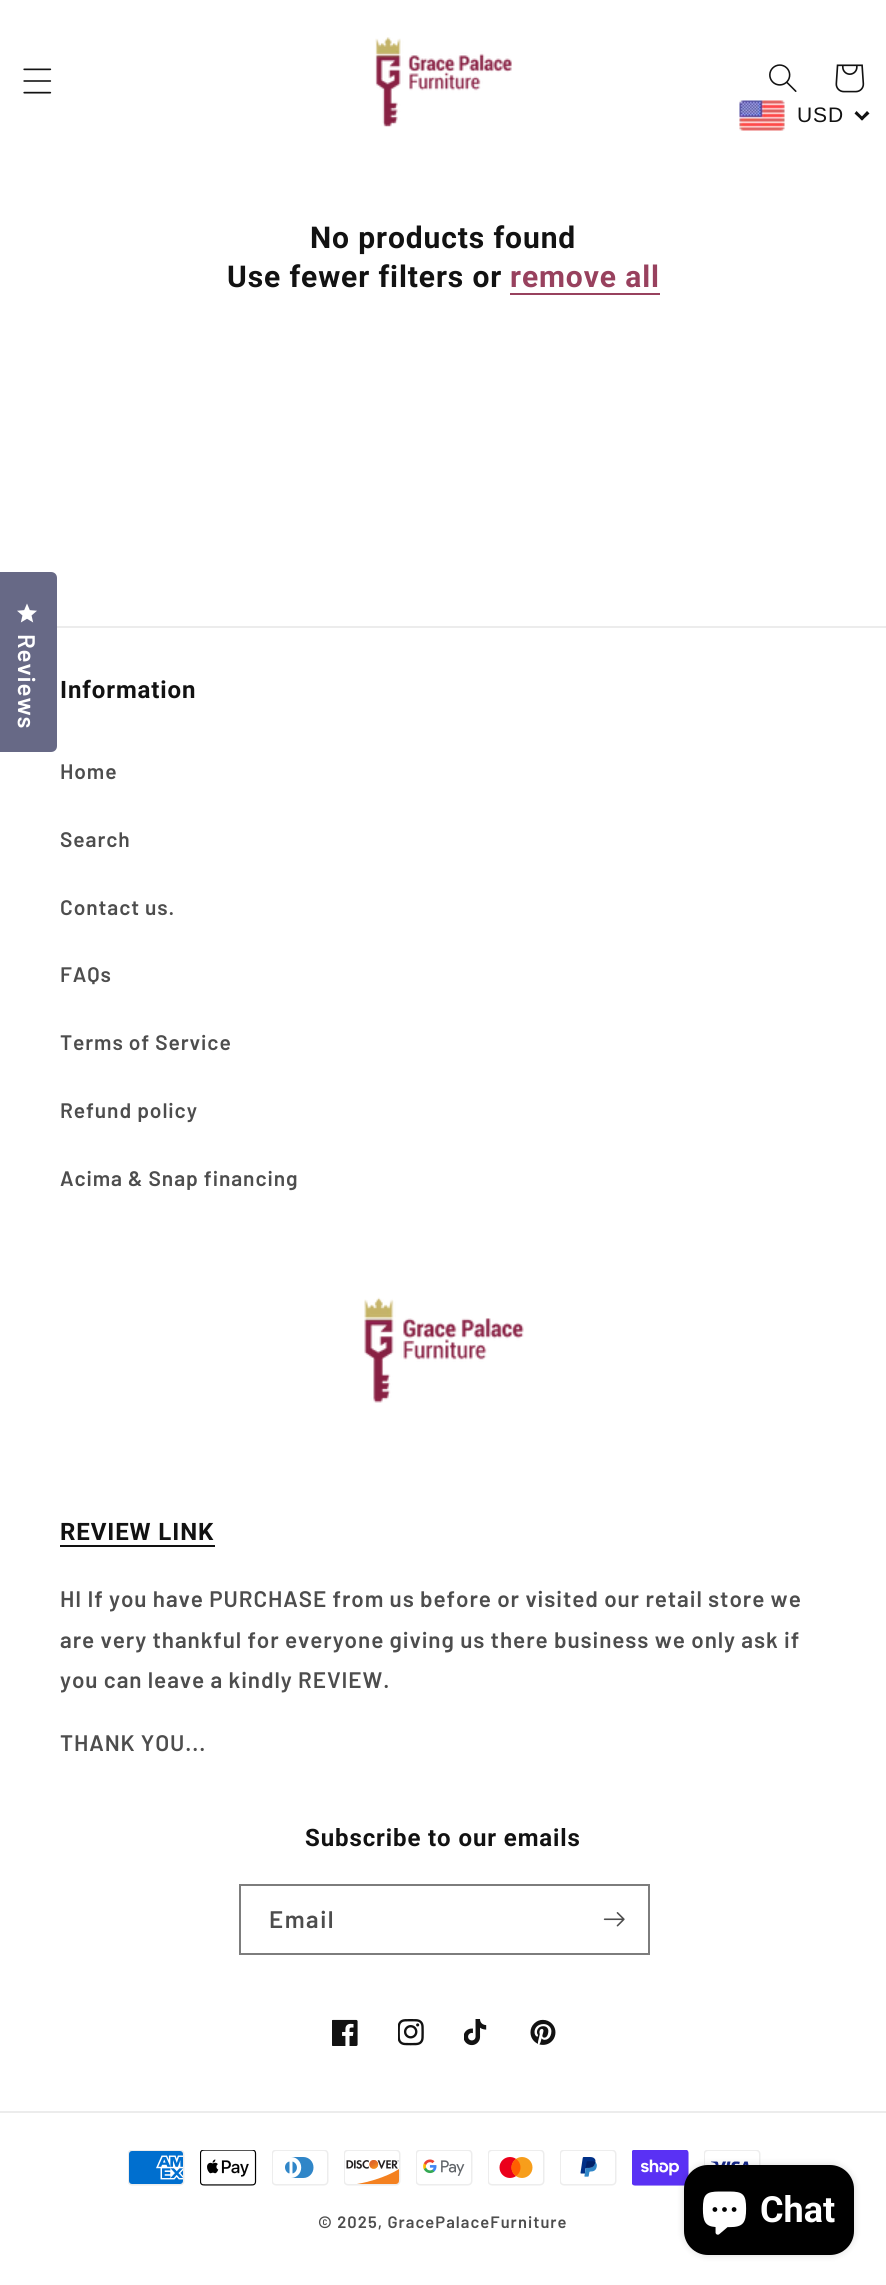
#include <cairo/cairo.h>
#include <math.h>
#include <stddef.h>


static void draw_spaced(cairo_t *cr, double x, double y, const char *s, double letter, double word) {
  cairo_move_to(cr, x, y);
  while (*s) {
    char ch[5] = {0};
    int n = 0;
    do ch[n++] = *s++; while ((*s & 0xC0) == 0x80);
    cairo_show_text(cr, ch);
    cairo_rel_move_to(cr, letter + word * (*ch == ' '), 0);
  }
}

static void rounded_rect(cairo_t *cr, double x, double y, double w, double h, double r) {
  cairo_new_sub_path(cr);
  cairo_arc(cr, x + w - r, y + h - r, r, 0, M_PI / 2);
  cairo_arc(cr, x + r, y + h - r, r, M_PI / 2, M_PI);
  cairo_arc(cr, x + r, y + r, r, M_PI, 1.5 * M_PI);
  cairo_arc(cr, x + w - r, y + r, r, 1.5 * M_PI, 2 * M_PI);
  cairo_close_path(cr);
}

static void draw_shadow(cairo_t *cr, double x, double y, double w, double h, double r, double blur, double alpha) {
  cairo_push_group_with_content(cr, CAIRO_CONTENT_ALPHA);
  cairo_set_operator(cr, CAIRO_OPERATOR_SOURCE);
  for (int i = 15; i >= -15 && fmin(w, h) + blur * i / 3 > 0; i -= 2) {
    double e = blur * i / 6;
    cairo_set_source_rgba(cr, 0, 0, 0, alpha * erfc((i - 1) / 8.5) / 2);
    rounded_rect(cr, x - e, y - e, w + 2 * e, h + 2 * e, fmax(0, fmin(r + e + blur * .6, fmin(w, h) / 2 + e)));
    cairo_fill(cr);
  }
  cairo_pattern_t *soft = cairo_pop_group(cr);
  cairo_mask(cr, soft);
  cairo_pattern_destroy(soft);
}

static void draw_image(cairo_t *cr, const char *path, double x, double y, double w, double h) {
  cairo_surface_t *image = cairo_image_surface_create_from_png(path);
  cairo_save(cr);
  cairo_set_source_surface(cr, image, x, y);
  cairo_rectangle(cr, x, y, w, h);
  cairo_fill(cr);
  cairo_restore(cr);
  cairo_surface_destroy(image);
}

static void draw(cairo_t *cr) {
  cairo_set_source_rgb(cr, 1, 1, 1);
  cairo_paint(cr);
  draw_image(cr, "images/1.png", 23, 68, 29, 26);
  draw_image(cr, "images/2.png", 375, 37, 137, 90);
  draw_image(cr, "images/3.png", 769, 64, 28, 28);
  draw_image(cr, "images/4.png", 835, 64, 30, 29);
  draw_image(cr, "images/5.png", 739, 100, 46, 31);
  cairo_set_source_rgb(cr, 18 / 255.0, 18 / 255.0, 18 / 255.0);
  cairo_new_path(cr);
  cairo_move_to(cr, 867, 111);
  cairo_line_to(cr, 869.5, 113.5);
  cairo_line_to(cr, 862, 120.5);
  cairo_line_to(cr, 860, 118.5);
  cairo_close_path(cr);
  cairo_fill(cr);
  cairo_new_path(cr);
  cairo_move_to(cr, 856.5, 111);
  cairo_line_to(cr, 864, 118.5);
  cairo_line_to(cr, 862, 120.5);
  cairo_line_to(cr, 854.5, 113.5);
  cairo_close_path(cr);
  cairo_fill(cr);
  cairo_set_source_rgb(cr, 152 / 255.0, 65 / 255.0, 94 / 255.0);
  cairo_rectangle(cr, 510, 293, 150, 2);
  cairo_fill(cr);
  cairo_set_source_rgb(cr, 103 / 255.0, 105 / 255.0, 134 / 255.0);
  cairo_new_path(cr);
  cairo_move_to(cr, -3, 572);
  cairo_line_to(cr, 51, 572);
  cairo_curve_to(cr, 54.5, 572, 57, 574.5, 57, 578);
  cairo_line_to(cr, 57, 746);
  cairo_curve_to(cr, 57, 749.5, 54.5, 752, 51, 752);
  cairo_line_to(cr, -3, 752);
  cairo_close_path(cr);
  cairo_fill(cr);
  draw_image(cr, "images/6.png", 17, 603, 20, 20);
  cairo_set_source_rgb(cr, 236 / 255.0, 236 / 255.0, 236 / 255.0);
  cairo_rectangle(cr, 57, 626, 829, 2);
  cairo_fill(cr);
  draw_image(cr, "images/7.png", 364, 1297, 160, 106);
  cairo_set_source_rgb(cr, 18 / 255.0, 18 / 255.0, 18 / 255.0);
  cairo_rectangle(cr, 60, 1545, 155, 2);
  cairo_fill(cr);
  cairo_rectangle(cr, 240, 1885, 409, 69);
  cairo_set_source_rgb(cr, 125 / 255.0, 125 / 255.0, 125 / 255.0);
  cairo_stroke(cr);
  draw_image(cr, "images/8.png", 603, 1912, 22, 15);
  draw_image(cr, "images/9.png", 332, 2019, 26, 27);
  draw_image(cr, "images/10.png", 398, 2019, 26, 27);
  draw_image(cr, "images/11.png", 464, 2019, 23, 27);
  draw_image(cr, "images/12.png", 530, 2019, 26, 26);
  cairo_set_source_rgb(cr, 236 / 255.0, 236 / 255.0, 236 / 255.0);
  cairo_rectangle(cr, 0, 2111, 886, 2);
  cairo_fill(cr);
  draw_image(cr, "images/13.png", 128, 2150, 57, 36);
  draw_image(cr, "images/14.png", 200, 2150, 57, 36);
  draw_image(cr, "images/15.png", 272, 2150, 57, 36);
  draw_image(cr, "images/16.png", 344, 2150, 57, 36);
  draw_image(cr, "images/17.png", 416, 2150, 57, 36);
  draw_image(cr, "images/18.png", 488, 2150, 57, 36);
  draw_image(cr, "images/19.png", 560, 2150, 57, 36);
  draw_image(cr, "images/20.png", 632, 2150, 57, 36);
  draw_image(cr, "images/21.png", 704, 2150, 57, 16);
  cairo_set_source_rgb(cr, 0, 0, 0);
  draw_shadow(cr, 684, 2165, 170, 90, 24, 4, 0.15);
  cairo_set_source_rgb(cr, 0, 0, 0);
  rounded_rect(cr, 684, 2165, 170, 90, 24);
  cairo_fill(cr);
  draw_image(cr, "images/22.png", 702, 2191, 45, 44);
  cairo_select_font_face(cr, "Liberation Sans", CAIRO_FONT_SLANT_NORMAL, CAIRO_FONT_WEIGHT_NORMAL);
  cairo_set_font_size(cr, 21);
  cairo_set_source_rgb(cr, 18 / 255.0, 18 / 255.0, 18 / 255.0);
  draw_spaced(cr, 797, 122, "USD", 0.9, 0);
  cairo_select_font_face(cr, "Roboto", CAIRO_FONT_SLANT_NORMAL, CAIRO_FONT_WEIGHT_BOLD);
  cairo_set_font_size(cr, 30);
  draw_spaced(cr, 310, 248, "No products found", 0.9, 0);
  draw_spaced(cr, 227, 287, "Use fewer filters or", 0.9, 0);
  cairo_set_source_rgb(cr, 152 / 255.0, 65 / 255.0, 94 / 255.0);
  draw_spaced(cr, 510, 287, "remove all", 0.9, 0);
  cairo_select_font_face(cr, "Barlow SemiBold", CAIRO_FONT_SLANT_NORMAL, CAIRO_FONT_WEIGHT_NORMAL);
  cairo_set_font_size(cr, 24);
  cairo_set_source_rgb(cr, 1, 1, 1);
  cairo_save(cr);
  cairo_translate(cr, 18, 634);
  cairo_rotate(cr, 90.1 * M_PI / 180);
  draw_spaced(cr, 0, 0, "Reviews", 0.9, 0);
  cairo_restore(cr);
  cairo_select_font_face(cr, "Roboto", CAIRO_FONT_SLANT_NORMAL, CAIRO_FONT_WEIGHT_BOLD);
  cairo_set_source_rgb(cr, 18 / 255.0, 18 / 255.0, 18 / 255.0);
  draw_spaced(cr, 60, 698, "Information", 0.9, 0);
  cairo_select_font_face(cr, "Barlow SemiBold", CAIRO_FONT_SLANT_NORMAL, CAIRO_FONT_WEIGHT_NORMAL);
  cairo_set_font_size(cr, 21);
  cairo_set_source_rgb(cr, 77 / 255.0, 77 / 255.0, 77 / 255.0);
  draw_spaced(cr, 60, 779, "Home", 0.9, 0);
  draw_spaced(cr, 60, 847, "Search", 0.9, 0);
  draw_spaced(cr, 60, 915, "Contact us.", 0.9, 0);
  draw_spaced(cr, 60, 982, "FAQs", 0.9, 0);
  draw_spaced(cr, 60, 1050, "Terms of Service", 0.9, 0);
  draw_spaced(cr, 60, 1118, "Refund policy", 0.9, 0);
  draw_spaced(cr, 60, 1186, "Acima & Snap financing", 0.9, 0);
  cairo_select_font_face(cr, "Roboto", CAIRO_FONT_SLANT_NORMAL, CAIRO_FONT_WEIGHT_BOLD);
  cairo_set_font_size(cr, 24);
  cairo_set_source_rgb(cr, 18 / 255.0, 18 / 255.0, 18 / 255.0);
  draw_spaced(cr, 60, 1540, "REVIEW LINK", 0.9, 0);
  cairo_select_font_face(cr, "Barlow SemiBold", CAIRO_FONT_SLANT_NORMAL, CAIRO_FONT_WEIGHT_NORMAL);
  cairo_set_font_size(cr, 22.5);
  cairo_set_source_rgb(cr, 77 / 255.0, 77 / 255.0, 77 / 255.0);
  draw_spaced(cr, 60, 1607, "HI If you have PURCHASE from us before or visited our retail store we", 0.9, 0);
  draw_spaced(cr, 60, 1648, "are very thankful for everyone giving us there business we only ask if", 0.9, 0);
  draw_spaced(cr, 60, 1688, "you can leave a kindly REVIEW.", 0.9, 0);
  draw_spaced(cr, 60, 1751, "THANK YOU...", 0.9, 0);
  cairo_select_font_face(cr, "Roboto", CAIRO_FONT_SLANT_NORMAL, CAIRO_FONT_WEIGHT_BOLD);
  cairo_set_font_size(cr, 24);
  cairo_set_source_rgb(cr, 18 / 255.0, 18 / 255.0, 18 / 255.0);
  draw_spaced(cr, 305, 1846, "Subscribe to our emails", 0.9, 0);
  cairo_select_font_face(cr, "Barlow SemiBold", CAIRO_FONT_SLANT_NORMAL, CAIRO_FONT_WEIGHT_NORMAL);
  cairo_set_source_rgb(cr, 77 / 255.0, 77 / 255.0, 77 / 255.0);
  draw_spaced(cr, 269, 1928, "Email", 1.5, 0);
  cairo_set_font_size(cr, 16.5);
  draw_spaced(cr, 318, 2228, "© 2025, GracePalaceFurniture", 1.05, 0);
  cairo_select_font_face(cr, "Roboto", CAIRO_FONT_SLANT_NORMAL, CAIRO_FONT_WEIGHT_BOLD);
  cairo_set_font_size(cr, 36);
  cairo_set_source_rgb(cr, 1, 1, 1);
  cairo_move_to(cr, 760, 2222);
  cairo_show_text(cr, "Chat");
}

int main(void) {
  cairo_surface_t *surface = cairo_image_surface_create(CAIRO_FORMAT_RGB24, 886, 2285);
  cairo_t *cr = cairo_create(surface);
  cairo_font_options_t *options = cairo_font_options_create();
  cairo_font_options_set_hint_metrics(options, CAIRO_HINT_METRICS_OFF);
  cairo_font_options_set_hint_style(options, CAIRO_HINT_STYLE_NONE);
  cairo_set_font_options(cr, options);
  cairo_set_miter_limit(cr, 4);
  draw(cr);
  cairo_surface_write_to_png(surface, "out.png");
  cairo_font_options_destroy(options);
  cairo_destroy(cr);
  cairo_surface_destroy(surface);
  return 0;
}
